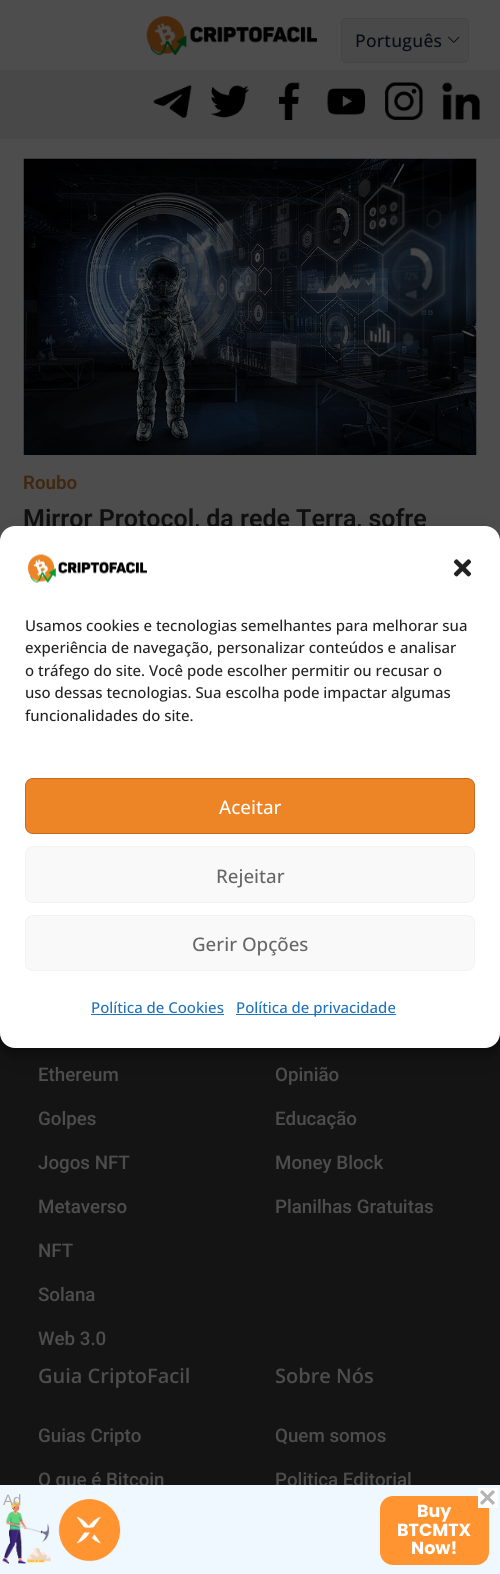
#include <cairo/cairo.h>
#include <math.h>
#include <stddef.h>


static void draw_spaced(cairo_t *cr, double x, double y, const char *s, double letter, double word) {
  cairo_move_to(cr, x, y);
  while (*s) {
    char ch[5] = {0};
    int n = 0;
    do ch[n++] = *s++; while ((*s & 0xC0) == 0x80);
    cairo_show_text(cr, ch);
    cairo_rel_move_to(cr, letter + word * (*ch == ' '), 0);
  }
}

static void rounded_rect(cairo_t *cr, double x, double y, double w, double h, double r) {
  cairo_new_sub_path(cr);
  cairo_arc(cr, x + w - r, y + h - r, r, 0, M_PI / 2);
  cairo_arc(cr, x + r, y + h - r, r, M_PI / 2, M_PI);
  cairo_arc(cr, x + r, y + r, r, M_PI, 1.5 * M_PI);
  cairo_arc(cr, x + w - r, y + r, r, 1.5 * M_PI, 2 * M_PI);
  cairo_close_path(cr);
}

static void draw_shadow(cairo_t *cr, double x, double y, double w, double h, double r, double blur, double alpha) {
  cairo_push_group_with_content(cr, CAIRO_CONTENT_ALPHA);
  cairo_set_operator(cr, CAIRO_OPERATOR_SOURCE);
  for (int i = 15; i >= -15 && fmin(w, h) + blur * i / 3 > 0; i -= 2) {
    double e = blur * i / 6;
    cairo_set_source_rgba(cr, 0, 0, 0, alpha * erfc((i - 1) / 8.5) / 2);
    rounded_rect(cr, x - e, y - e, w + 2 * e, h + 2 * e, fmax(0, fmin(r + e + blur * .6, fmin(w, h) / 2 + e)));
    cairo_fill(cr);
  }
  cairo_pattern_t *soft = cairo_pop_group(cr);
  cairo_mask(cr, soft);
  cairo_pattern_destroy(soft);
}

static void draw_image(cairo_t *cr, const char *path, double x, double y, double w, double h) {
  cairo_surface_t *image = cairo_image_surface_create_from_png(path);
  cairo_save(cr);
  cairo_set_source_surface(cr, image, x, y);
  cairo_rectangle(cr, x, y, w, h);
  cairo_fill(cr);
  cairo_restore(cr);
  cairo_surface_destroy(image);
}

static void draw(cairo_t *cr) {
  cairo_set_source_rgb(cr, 77 / 255.0, 77 / 255.0, 77 / 255.0);
  cairo_paint(cr);
  draw_image(cr, "images/1.png", 146, 16, 171, 39);
  cairo_set_source_rgb(cr, 73 / 255.0, 73 / 255.0, 73 / 255.0);
  rounded_rect(cr, 341.5, 18.5, 127, 44, 4.5);
  cairo_fill_preserve(cr);
  cairo_set_source_rgb(cr, 68 / 255.0, 68 / 255.0, 68 / 255.0);
  cairo_set_line_width(cr, 1);
  cairo_stroke(cr);
  draw_image(cr, "images/2.png", 448, 36, 12, 7);
  cairo_set_source_rgb(cr, 72 / 255.0, 72 / 255.0, 72 / 255.0);
  cairo_rectangle(cr, 0, 70, 500, 69);
  cairo_fill(cr);
  draw_image(cr, "images/3.png", 153, 85, 39, 33);
  draw_image(cr, "images/4.png", 211, 85, 38, 33);
  draw_image(cr, "images/5.png", 279, 82, 21, 38);
  draw_image(cr, "images/6.png", 327, 88, 38, 27);
  draw_image(cr, "images/7.png", 385, 82, 38, 38);
  draw_image(cr, "images/8.png", 442, 82, 38, 38);
  draw_image(cr, "images/9.png", 23, 158, 454, 297);
  cairo_set_source_rgb(cr, 20 / 255.0, 20 / 255.0, 20 / 255.0);
  cairo_rectangle(cr, 0, 1033, 500, 452);
  cairo_fill(cr);
  cairo_set_source_rgb(cr, 0, 0, 0);
  draw_shadow(cr, 0, 534, 500, 521, 15, 4, 0.23);
  draw_shadow(cr, 0, 539, 500, 521, 15, 12.5, 0.19);
  cairo_select_font_face(cr, "Open Sans Medium", CAIRO_FONT_SLANT_NORMAL, CAIRO_FONT_WEIGHT_NORMAL);
  cairo_set_font_size(cr, 17.5);
  cairo_set_source_rgb(cr, 8 / 255.0, 11 / 255.0, 20 / 255.0);
  draw_spaced(cr, 355, 47, "Português", 0.25, 0);
  cairo_select_font_face(cr, "Roboto SemiBold", CAIRO_FONT_SLANT_NORMAL, CAIRO_FONT_WEIGHT_NORMAL);
  cairo_set_font_size(cr, 18.75);
  cairo_set_source_rgb(cr, 64 / 255.0, 40 / 255.0, 14 / 255.0);
  cairo_move_to(cr, 23, 489);
  cairo_show_text(cr, "Roubo");
  cairo_set_font_size(cr, 25);
  cairo_set_source_rgb(cr, 15 / 255.0, 15 / 255.0, 15 / 255.0);
  cairo_move_to(cr, 23, 527);
  cairo_show_text(cr, "Mirror Protocol, da rede Terra, sofre");
  cairo_set_source_rgb(cr, 1, 1, 1);
  rounded_rect(cr, 0, 526, 500, 522, 15);
  cairo_fill(cr);
  draw_image(cr, "images/10.png", 28, 554, 119, 29);
  draw_image(cr, "images/11.png", 453, 559, 19, 18);
  cairo_select_font_face(cr, "Open Sans Medium", CAIRO_FONT_SLANT_NORMAL, CAIRO_FONT_WEIGHT_NORMAL);
  cairo_set_font_size(cr, 15);
  cairo_set_source_rgb(cr, 34 / 255.0, 34 / 255.0, 34 / 255.0);
  cairo_move_to(cr, 25, 631);
  cairo_show_text(cr, "Usamos cookies e tecnologias semelhantes para melhorar sua");
  cairo_move_to(cr, 25, 653);
  cairo_show_text(cr, "experiência de navegação, personalizar conteúdos e analisar");
  cairo_move_to(cr, 25, 676);
  cairo_show_text(cr, "o tráfego do site. Você pode escolher permitir ou recusar o");
  cairo_move_to(cr, 25, 698);
  cairo_show_text(cr, "uso dessas tecnologias. Sua escolha pode impactar algumas");
  cairo_move_to(cr, 25, 721);
  cairo_show_text(cr, "funcionalidades do site.");
  cairo_set_source_rgb(cr, 237 / 255.0, 133 / 255.0, 38 / 255.0);
  rounded_rect(cr, 25.5, 778.5, 449, 55, 7.5);
  cairo_fill_preserve(cr);
  cairo_set_source_rgb(cr, 197 / 255.0, 105 / 255.0, 33 / 255.0);
  cairo_stroke(cr);
  cairo_set_font_size(cr, 18.75);
  cairo_set_source_rgb(cr, 1, 1, 1);
  cairo_move_to(cr, 219, 814);
  cairo_show_text(cr, "Aceitar");
  cairo_set_source_rgb(cr, 249 / 255.0, 249 / 255.0, 249 / 255.0);
  rounded_rect(cr, 25.5, 846.5, 449, 56, 7.5);
  cairo_fill_preserve(cr);
  cairo_set_source_rgb(cr, 242 / 255.0, 242 / 255.0, 242 / 255.0);
  cairo_stroke(cr);
  cairo_set_source_rgb(cr, 102 / 255.0, 102 / 255.0, 102 / 255.0);
  cairo_move_to(cr, 216, 883);
  cairo_show_text(cr, "Rejeitar");
  cairo_set_source_rgb(cr, 249 / 255.0, 249 / 255.0, 249 / 255.0);
  rounded_rect(cr, 25.5, 915.5, 449, 55, 7.5);
  cairo_fill_preserve(cr);
  cairo_set_source_rgb(cr, 242 / 255.0, 242 / 255.0, 242 / 255.0);
  cairo_stroke(cr);
  cairo_set_source_rgb(cr, 102 / 255.0, 102 / 255.0, 102 / 255.0);
  cairo_move_to(cr, 192, 951);
  cairo_show_text(cr, "Gerir Opções");
  cairo_set_font_size(cr, 15);
  cairo_set_source_rgb(cr, 30 / 255.0, 115 / 255.0, 190 / 255.0);
  cairo_move_to(cr, 91, 1013);
  cairo_show_text(cr, "Política de Cookies");
  cairo_rectangle(cr, 91, 1014, 133, 1);
  cairo_fill(cr);
  cairo_rectangle(cr, 236, 1014, 160, 1);
  cairo_fill(cr);
  cairo_move_to(cr, 236, 1013);
  cairo_show_text(cr, "Política de privacidade");
  cairo_select_font_face(cr, "Roboto Medium", CAIRO_FONT_SLANT_NORMAL, CAIRO_FONT_WEIGHT_NORMAL);
  cairo_set_font_size(cr, 18.75);
  cairo_set_source_rgb(cr, 77 / 255.0, 77 / 255.0, 77 / 255.0);
  cairo_move_to(cr, 38, 1081);
  cairo_show_text(cr, "Ethereum");
  cairo_move_to(cr, 38, 1125);
  cairo_show_text(cr, "Golpes");
  cairo_move_to(cr, 38, 1169);
  cairo_show_text(cr, "Jogos NFT");
  cairo_move_to(cr, 38, 1213);
  cairo_show_text(cr, "Metaverso");
  cairo_move_to(cr, 38, 1257);
  cairo_show_text(cr, "NFT");
  cairo_move_to(cr, 38, 1301);
  cairo_show_text(cr, "Solana");
  cairo_move_to(cr, 38, 1345);
  cairo_show_text(cr, "Web 3.0");
  cairo_move_to(cr, 275, 1081);
  cairo_show_text(cr, "Opinião");
  cairo_move_to(cr, 275, 1125);
  cairo_show_text(cr, "Educação");
  cairo_move_to(cr, 275, 1169);
  cairo_show_text(cr, "Money Block");
  cairo_move_to(cr, 275, 1213);
  cairo_show_text(cr, "Planilhas Gratuitas");
  cairo_select_font_face(cr, "Open Sans SemiBold", CAIRO_FONT_SLANT_NORMAL, CAIRO_FONT_WEIGHT_NORMAL);
  cairo_set_font_size(cr, 20);
  cairo_move_to(cr, 38, 1383);
  cairo_show_text(cr, "Guia CriptoFacil");
  cairo_select_font_face(cr, "Roboto Medium", CAIRO_FONT_SLANT_NORMAL, CAIRO_FONT_WEIGHT_NORMAL);
  cairo_set_font_size(cr, 18.75);
  cairo_move_to(cr, 38, 1442);
  cairo_show_text(cr, "Guias Cripto");
  cairo_move_to(cr, 38, 1486);
  cairo_show_text(cr, "O que é Bitcoin");
  cairo_select_font_face(cr, "Open Sans SemiBold", CAIRO_FONT_SLANT_NORMAL, CAIRO_FONT_WEIGHT_NORMAL);
  cairo_set_font_size(cr, 20);
  cairo_move_to(cr, 275, 1383);
  cairo_show_text(cr, "Sobre Nós");
  cairo_select_font_face(cr, "Roboto Medium", CAIRO_FONT_SLANT_NORMAL, CAIRO_FONT_WEIGHT_NORMAL);
  cairo_set_font_size(cr, 18.75);
  cairo_move_to(cr, 275, 1442);
  cairo_show_text(cr, "Quem somos");
  cairo_move_to(cr, 275, 1486);
  cairo_show_text(cr, "Politica Editorial");
  cairo_set_source_rgb(cr, 239 / 255.0, 248 / 255.0, 1);
  cairo_rectangle(cr, 0, 1485, 500, 89);
  cairo_fill(cr);
  draw_image(cr, "images/13.png", 2, 1500, 49, 64);
  cairo_select_font_face(cr, "Liberation Sans", CAIRO_FONT_SLANT_NORMAL, CAIRO_FONT_WEIGHT_NORMAL);
  cairo_set_font_size(cr, 15);
  cairo_set_source_rgb(cr, 175 / 255.0, 172 / 255.0, 172 / 255.0);
  cairo_move_to(cr, 3, 1505);
  cairo_show_text(cr, "Ad");
  draw_image(cr, "images/14.png", 58, 1498, 63, 64);
  cairo_set_source_rgb(cr, 1, 148 / 255.0, 49 / 255.0);
  rounded_rect(cr, 380, 1496, 109, 69, 13);
  cairo_fill(cr);
  cairo_set_source_rgb(cr, 1, 1, 1);
  cairo_rectangle(cr, 478, 1488, 20, 20);
  cairo_fill(cr);
  draw_image(cr, "images/12.png", 480, 1490, 15, 15);
  cairo_select_font_face(cr, "Poppins", CAIRO_FONT_SLANT_NORMAL, CAIRO_FONT_WEIGHT_BOLD);
  cairo_set_font_size(cr, 17.5);
  cairo_move_to(cr, 417, 1517);
  cairo_show_text(cr, "Buy");
  cairo_move_to(cr, 397, 1536);
  cairo_show_text(cr, "BTCMTX");
  cairo_move_to(cr, 411, 1554);
  cairo_show_text(cr, "Now!");
}

int main(void) {
  cairo_surface_t *surface = cairo_image_surface_create(CAIRO_FORMAT_RGB24, 500, 1574);
  cairo_t *cr = cairo_create(surface);
  cairo_font_options_t *options = cairo_font_options_create();
  cairo_font_options_set_hint_metrics(options, CAIRO_HINT_METRICS_OFF);
  cairo_font_options_set_hint_style(options, CAIRO_HINT_STYLE_NONE);
  cairo_set_font_options(cr, options);
  cairo_set_miter_limit(cr, 4);
  draw(cr);
  cairo_surface_write_to_png(surface, "out.png");
  cairo_font_options_destroy(options);
  cairo_destroy(cr);
  cairo_surface_destroy(surface);
  return 0;
}
